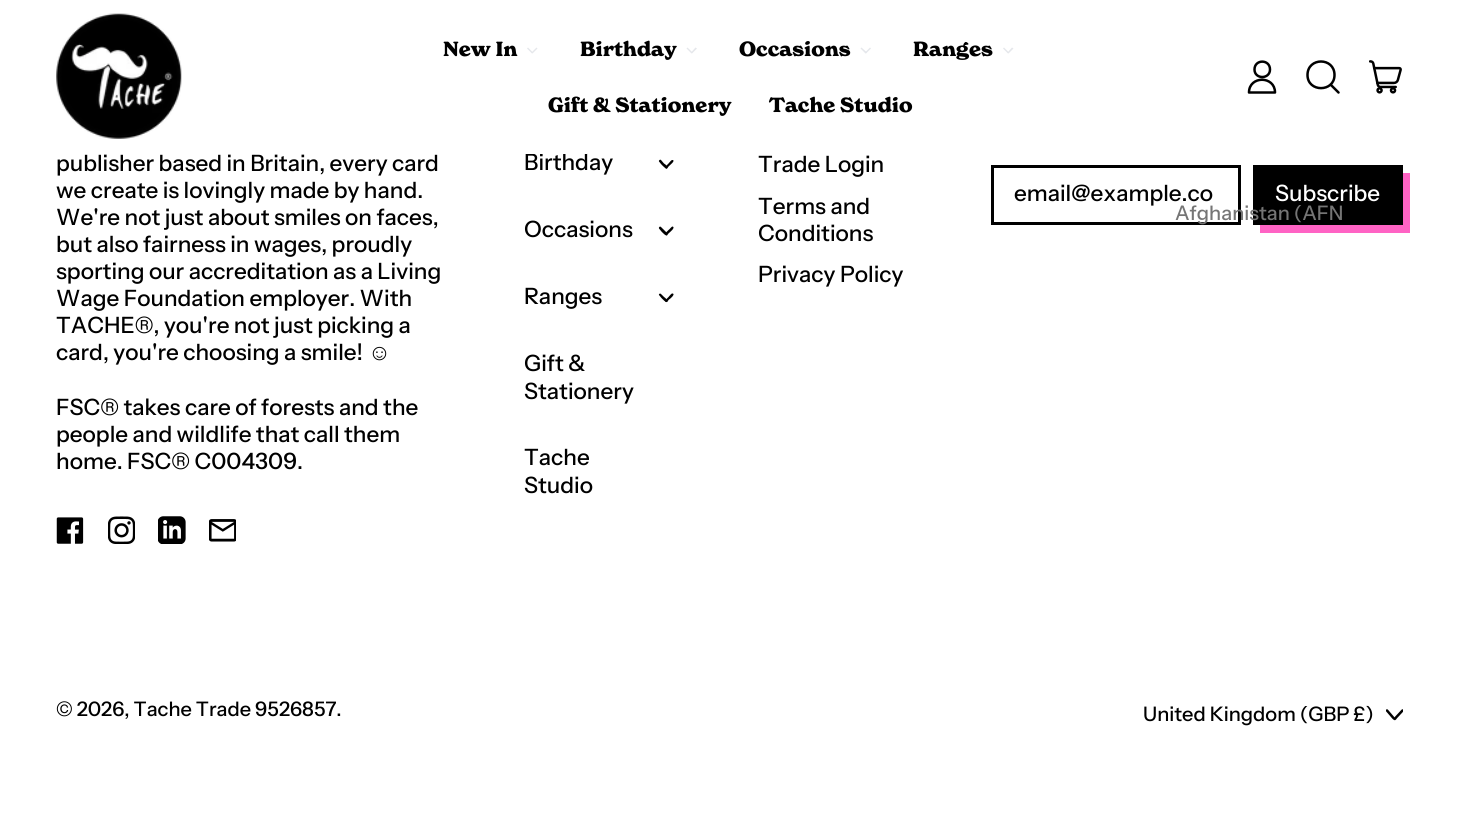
#include <cairo/cairo.h>
#include <math.h>
#include <stddef.h>


static void draw_image(cairo_t *cr, const char *path, double x, double y, double w, double h) {
  cairo_surface_t *image = cairo_image_surface_create_from_png(path);
  cairo_save(cr);
  cairo_set_source_surface(cr, image, x, y);
  cairo_rectangle(cr, x, y, w, h);
  cairo_fill(cr);
  cairo_restore(cr);
  cairo_surface_destroy(image);
}

static void draw(cairo_t *cr) {
  cairo_set_source_rgb(cr, 1, 1, 1);
  cairo_paint(cr);
  draw_image(cr, "images/1.png", 56, 13, 126, 126);
  cairo_set_source_rgb(cr, 229 / 255.0, 231 / 255.0, 235 / 255.0);
  cairo_new_path(cr);
  cairo_move_to(cr, 536.5, 47.5);
  cairo_line_to(cr, 537.5, 48.5);
  cairo_line_to(cr, 532.5, 53.5);
  cairo_line_to(cr, 531.5, 52.5);
  cairo_close_path(cr);
  cairo_fill(cr);
  cairo_new_path(cr);
  cairo_move_to(cr, 528, 47.5);
  cairo_line_to(cr, 533, 52.5);
  cairo_line_to(cr, 532, 53.5);
  cairo_line_to(cr, 527, 48.5);
  cairo_close_path(cr);
  cairo_fill(cr);
  cairo_new_path(cr);
  cairo_move_to(cr, 695.5, 47.5);
  cairo_line_to(cr, 697, 48.5);
  cairo_line_to(cr, 692, 53.5);
  cairo_line_to(cr, 691, 52.5);
  cairo_close_path(cr);
  cairo_fill(cr);
  cairo_new_path(cr);
  cairo_move_to(cr, 687.5, 47.5);
  cairo_line_to(cr, 692.5, 52.5);
  cairo_line_to(cr, 691.5, 53.5);
  cairo_line_to(cr, 686.5, 48.5);
  cairo_close_path(cr);
  cairo_fill(cr);
  cairo_new_path(cr);
  cairo_move_to(cr, 870, 47.5);
  cairo_line_to(cr, 871, 48.5);
  cairo_line_to(cr, 866, 53.5);
  cairo_line_to(cr, 865, 52.5);
  cairo_close_path(cr);
  cairo_fill(cr);
  cairo_new_path(cr);
  cairo_move_to(cr, 861.5, 47.5);
  cairo_line_to(cr, 867, 52.5);
  cairo_line_to(cr, 865.5, 53.5);
  cairo_line_to(cr, 860.5, 48.5);
  cairo_close_path(cr);
  cairo_fill(cr);
  cairo_new_path(cr);
  cairo_move_to(cr, 1012, 47.5);
  cairo_line_to(cr, 1013.5, 48.5);
  cairo_line_to(cr, 1008.5, 53.5);
  cairo_line_to(cr, 1007.5, 52.5);
  cairo_close_path(cr);
  cairo_fill(cr);
  cairo_new_path(cr);
  cairo_move_to(cr, 1004, 47.5);
  cairo_line_to(cr, 1009, 52.5);
  cairo_line_to(cr, 1008, 53.5);
  cairo_line_to(cr, 1003, 48.5);
  cairo_close_path(cr);
  cairo_fill(cr);
  cairo_new_path(cr);
  cairo_move_to(cr, 1254.5, 69.5);
  cairo_curve_to(cr, 1254.5, 79.5, 1270, 79.5, 1270, 69.5);
  cairo_curve_to(cr, 1270, 59, 1254.5, 59, 1254.5, 69.5);
  cairo_close_path(cr);
  cairo_move_to(cr, 1249, 92.5);
  cairo_curve_to(cr, 1249, 75.5, 1275, 75.5, 1275, 92.5);
  cairo_close_path(cr);
  cairo_set_source_rgb(cr, 0, 0, 0);
  cairo_set_line_width(cr, 2.5);
  cairo_set_line_cap(cr, CAIRO_LINE_CAP_ROUND);
  cairo_set_line_join(cr, CAIRO_LINE_JOIN_ROUND);
  cairo_stroke(cr);
  cairo_new_path(cr);
  cairo_move_to(cr, 1307.5, 75);
  cairo_curve_to(cr, 1307.5, 92.5, 1334.5, 92.5, 1334.5, 75);
  cairo_curve_to(cr, 1334.5, 57, 1307.5, 57, 1307.5, 75);
  cairo_close_path(cr);
  cairo_move_to(cr, 1338.5, 92.5);
  cairo_line_to(cr, 1330.5, 84.5);
  cairo_stroke(cr);
  draw_image(cr, "images/2.png", 1369, 60, 33, 34);
  draw_image(cr, "images/3.png", 56, 517, 28, 27);
  draw_image(cr, "images/4.png", 108, 516, 27, 28);
  draw_image(cr, "images/5.png", 158, 516, 28, 28);
  draw_image(cr, "images/6.png", 209, 519, 27, 23);
  cairo_new_path(cr);
  cairo_move_to(cr, 661, 160);
  cairo_line_to(cr, 664, 163.5);
  cairo_curve_to(cr, 665, 164, 667.5, 166, 667.5, 167.5);
  cairo_curve_to(cr, 667, 171, 661.5, 164.5, 661, 164);
  cairo_line_to(cr, 659, 161.5);
  cairo_curve_to(cr, 658.5, 160.5, 660, 159, 661, 160);
  cairo_close_path(cr);
  cairo_fill(cr);
  cairo_new_path(cr);
  cairo_move_to(cr, 665.5, 166.5);
  cairo_line_to(cr, 668.5, 163.5);
  cairo_curve_to(cr, 669.5, 162.5, 671.5, 159.5, 672.5, 160);
  cairo_curve_to(cr, 676, 160.5, 669.5, 165.5, 669, 166);
  cairo_line_to(cr, 667, 168.5);
  cairo_curve_to(cr, 665.5, 169, 664.5, 167.5, 665.5, 166.5);
  cairo_close_path(cr);
  cairo_fill(cr);
  cairo_new_path(cr);
  cairo_move_to(cr, 661, 227);
  cairo_line_to(cr, 664, 230);
  cairo_curve_to(cr, 665, 231, 667.5, 233, 667.5, 234.5);
  cairo_curve_to(cr, 667, 238, 661.5, 231.5, 661, 231);
  cairo_line_to(cr, 659, 228.5);
  cairo_curve_to(cr, 658.5, 227, 660, 226, 661, 227);
  cairo_close_path(cr);
  cairo_fill(cr);
  cairo_new_path(cr);
  cairo_move_to(cr, 665.5, 233);
  cairo_line_to(cr, 668.5, 230);
  cairo_curve_to(cr, 669.5, 229.5, 671.5, 226.5, 672.5, 226.5);
  cairo_curve_to(cr, 676, 227.5, 669.5, 232.5, 669, 233);
  cairo_line_to(cr, 667, 235);
  cairo_curve_to(cr, 665.5, 235.5, 664.5, 234, 665.5, 233);
  cairo_close_path(cr);
  cairo_fill(cr);
  cairo_new_path(cr);
  cairo_move_to(cr, 661, 294);
  cairo_line_to(cr, 664, 297);
  cairo_curve_to(cr, 665, 297.5, 667.5, 300, 667.5, 301);
  cairo_curve_to(cr, 667, 304.5, 661.5, 298, 661, 297.5);
  cairo_line_to(cr, 659, 295);
  cairo_curve_to(cr, 658.5, 294, 660, 293, 661, 294);
  cairo_close_path(cr);
  cairo_fill(cr);
  cairo_new_path(cr);
  cairo_move_to(cr, 665.5, 300);
  cairo_line_to(cr, 668.5, 297);
  cairo_curve_to(cr, 669.5, 296, 671.5, 293, 672.5, 293.5);
  cairo_curve_to(cr, 676, 294, 669.5, 299.5, 669, 299.5);
  cairo_line_to(cr, 667, 302);
  cairo_curve_to(cr, 665.5, 302.5, 664.5, 301, 665.5, 300);
  cairo_close_path(cr);
  cairo_fill(cr);
  cairo_rectangle(cr, 992.5, 166.5, 247, 57);
  cairo_set_line_width(cr, 3);
  cairo_set_line_cap(cr, CAIRO_LINE_CAP_BUTT);
  cairo_set_line_join(cr, CAIRO_LINE_JOIN_MITER);
  cairo_stroke(cr);
  cairo_set_source_rgb(cr, 1, 99 / 255.0, 196 / 255.0);
  cairo_rectangle(cr, 1260, 173, 150, 60);
  cairo_fill(cr);
  cairo_set_source_rgb(cr, 0, 0, 0);
  cairo_rectangle(cr, 1253, 165, 150, 60);
  cairo_fill(cr);
  cairo_save(cr);
  cairo_rectangle(cr, 1386, 706, 17, 18);
  cairo_clip(cr);
  cairo_new_path(cr);
  cairo_move_to(cr, 1387, 710.5);
  cairo_line_to(cr, 1393, 717.5);
  cairo_curve_to(cr, 1395, 719.5, 1394.5, 719.5, 1396, 717.5);
  cairo_line_to(cr, 1402.5, 710.5);
  cairo_set_line_width(cr, 2.5);
  cairo_set_line_cap(cr, CAIRO_LINE_CAP_ROUND);
  cairo_set_line_join(cr, CAIRO_LINE_JOIN_ROUND);
  cairo_stroke(cr);
  cairo_restore(cr);
  cairo_select_font_face(cr, "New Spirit", CAIRO_FONT_SLANT_NORMAL, CAIRO_FONT_WEIGHT_BOLD);
  cairo_set_font_size(cr, 20);
  cairo_move_to(cr, 443, 56);
  cairo_show_text(cr, "New In");
  cairo_move_to(cr, 580, 56);
  cairo_show_text(cr, "Birthday");
  cairo_move_to(cr, 739, 56);
  cairo_show_text(cr, "Occasions");
  cairo_move_to(cr, 913, 56);
  cairo_show_text(cr, "Ranges");
  cairo_move_to(cr, 548, 112);
  cairo_show_text(cr, "Gift & Stationery");
  cairo_move_to(cr, 769, 112);
  cairo_show_text(cr, "Tache Studio");
  cairo_select_font_face(cr, "Instrument Sans Medium", CAIRO_FONT_SLANT_NORMAL, CAIRO_FONT_WEIGHT_NORMAL);
  cairo_set_font_size(cr, 22.5);
  cairo_move_to(cr, 56, 171);
  cairo_show_text(cr, "publisher based in Britain, every card");
  cairo_move_to(cr, 56, 198);
  cairo_show_text(cr, "we create is lovingly made by hand.");
  cairo_move_to(cr, 56, 225);
  cairo_show_text(cr, "We're not just about smiles on faces,");
  cairo_move_to(cr, 56, 252);
  cairo_show_text(cr, "but also fairness in wages, proudly");
  cairo_move_to(cr, 56, 279);
  cairo_show_text(cr, "sporting our accreditation as a Living");
  cairo_move_to(cr, 56, 306);
  cairo_show_text(cr, "Wage Foundation employer. With");
  cairo_move_to(cr, 56, 333);
  cairo_show_text(cr, "TACHE®, you're not just picking a");
  cairo_move_to(cr, 56, 360);
  cairo_show_text(cr, "card, you're choosing a smile!");
  cairo_select_font_face(cr, "Liberation Sans", CAIRO_FONT_SLANT_NORMAL, CAIRO_FONT_WEIGHT_NORMAL);
  cairo_move_to(cr, 368, 360);
  cairo_show_text(cr, "☺");
  cairo_select_font_face(cr, "Instrument Sans Medium", CAIRO_FONT_SLANT_NORMAL, CAIRO_FONT_WEIGHT_NORMAL);
  cairo_move_to(cr, 56, 415);
  cairo_show_text(cr, "FSC® takes care of forests and the");
  cairo_move_to(cr, 56, 442);
  cairo_show_text(cr, "people and wildlife that call them");
  cairo_move_to(cr, 56, 469);
  cairo_show_text(cr, "home. FSC® C004309.");
  cairo_move_to(cr, 524, 170);
  cairo_show_text(cr, "Birthday");
  cairo_set_source_rgb(cr, 1, 1, 1);
  cairo_rectangle(cr, 525, 153, 62, 1);
  cairo_fill(cr);
  cairo_set_source_rgb(cr, 0, 0, 0);
  cairo_move_to(cr, 524, 237);
  cairo_show_text(cr, "Occasions");
  cairo_move_to(cr, 524, 304);
  cairo_show_text(cr, "Ranges");
  cairo_move_to(cr, 524, 371);
  cairo_show_text(cr, "Gift &");
  cairo_move_to(cr, 524, 399);
  cairo_show_text(cr, "Stationery");
  cairo_move_to(cr, 524, 465);
  cairo_show_text(cr, "Tache");
  cairo_move_to(cr, 524, 493);
  cairo_show_text(cr, "Studio");
  cairo_move_to(cr, 758, 172);
  cairo_show_text(cr, "Trade Login");
  cairo_move_to(cr, 758, 214);
  cairo_show_text(cr, "Terms and");
  cairo_move_to(cr, 758, 241);
  cairo_show_text(cr, "Conditions");
  cairo_move_to(cr, 758, 282);
  cairo_show_text(cr, "Privacy Policy");
  cairo_move_to(cr, 1014, 201);
  cairo_show_text(cr, "email@example.co");
  cairo_set_source_rgb(cr, 1, 1, 1);
  cairo_move_to(cr, 1275, 201);
  cairo_show_text(cr, "Subscribe");
  cairo_set_font_size(cr, 20);
  cairo_set_source_rgb(cr, 0, 0, 0);
  cairo_move_to(cr, 56, 716);
  cairo_show_text(cr, "© 2026, Tache Trade 9526857.");
  cairo_set_source_rgb(cr, 117 / 255.0, 117 / 255.0, 117 / 255.0);
  cairo_move_to(cr, 1175, 220);
  cairo_show_text(cr, "Afghanistan (AFN");
  cairo_set_source_rgb(cr, 0, 0, 0);
  cairo_move_to(cr, 1143, 721);
  cairo_show_text(cr, "United Kingdom (GBP £)");
}

int main(void) {
  cairo_surface_t *surface = cairo_image_surface_create(CAIRO_FORMAT_RGB24, 1458, 822);
  cairo_t *cr = cairo_create(surface);
  cairo_font_options_t *options = cairo_font_options_create();
  cairo_font_options_set_hint_metrics(options, CAIRO_HINT_METRICS_OFF);
  cairo_font_options_set_hint_style(options, CAIRO_HINT_STYLE_NONE);
  cairo_set_font_options(cr, options);
  cairo_set_miter_limit(cr, 4);
  draw(cr);
  cairo_surface_write_to_png(surface, "out.png");
  cairo_font_options_destroy(options);
  cairo_destroy(cr);
  cairo_surface_destroy(surface);
  return 0;
}
